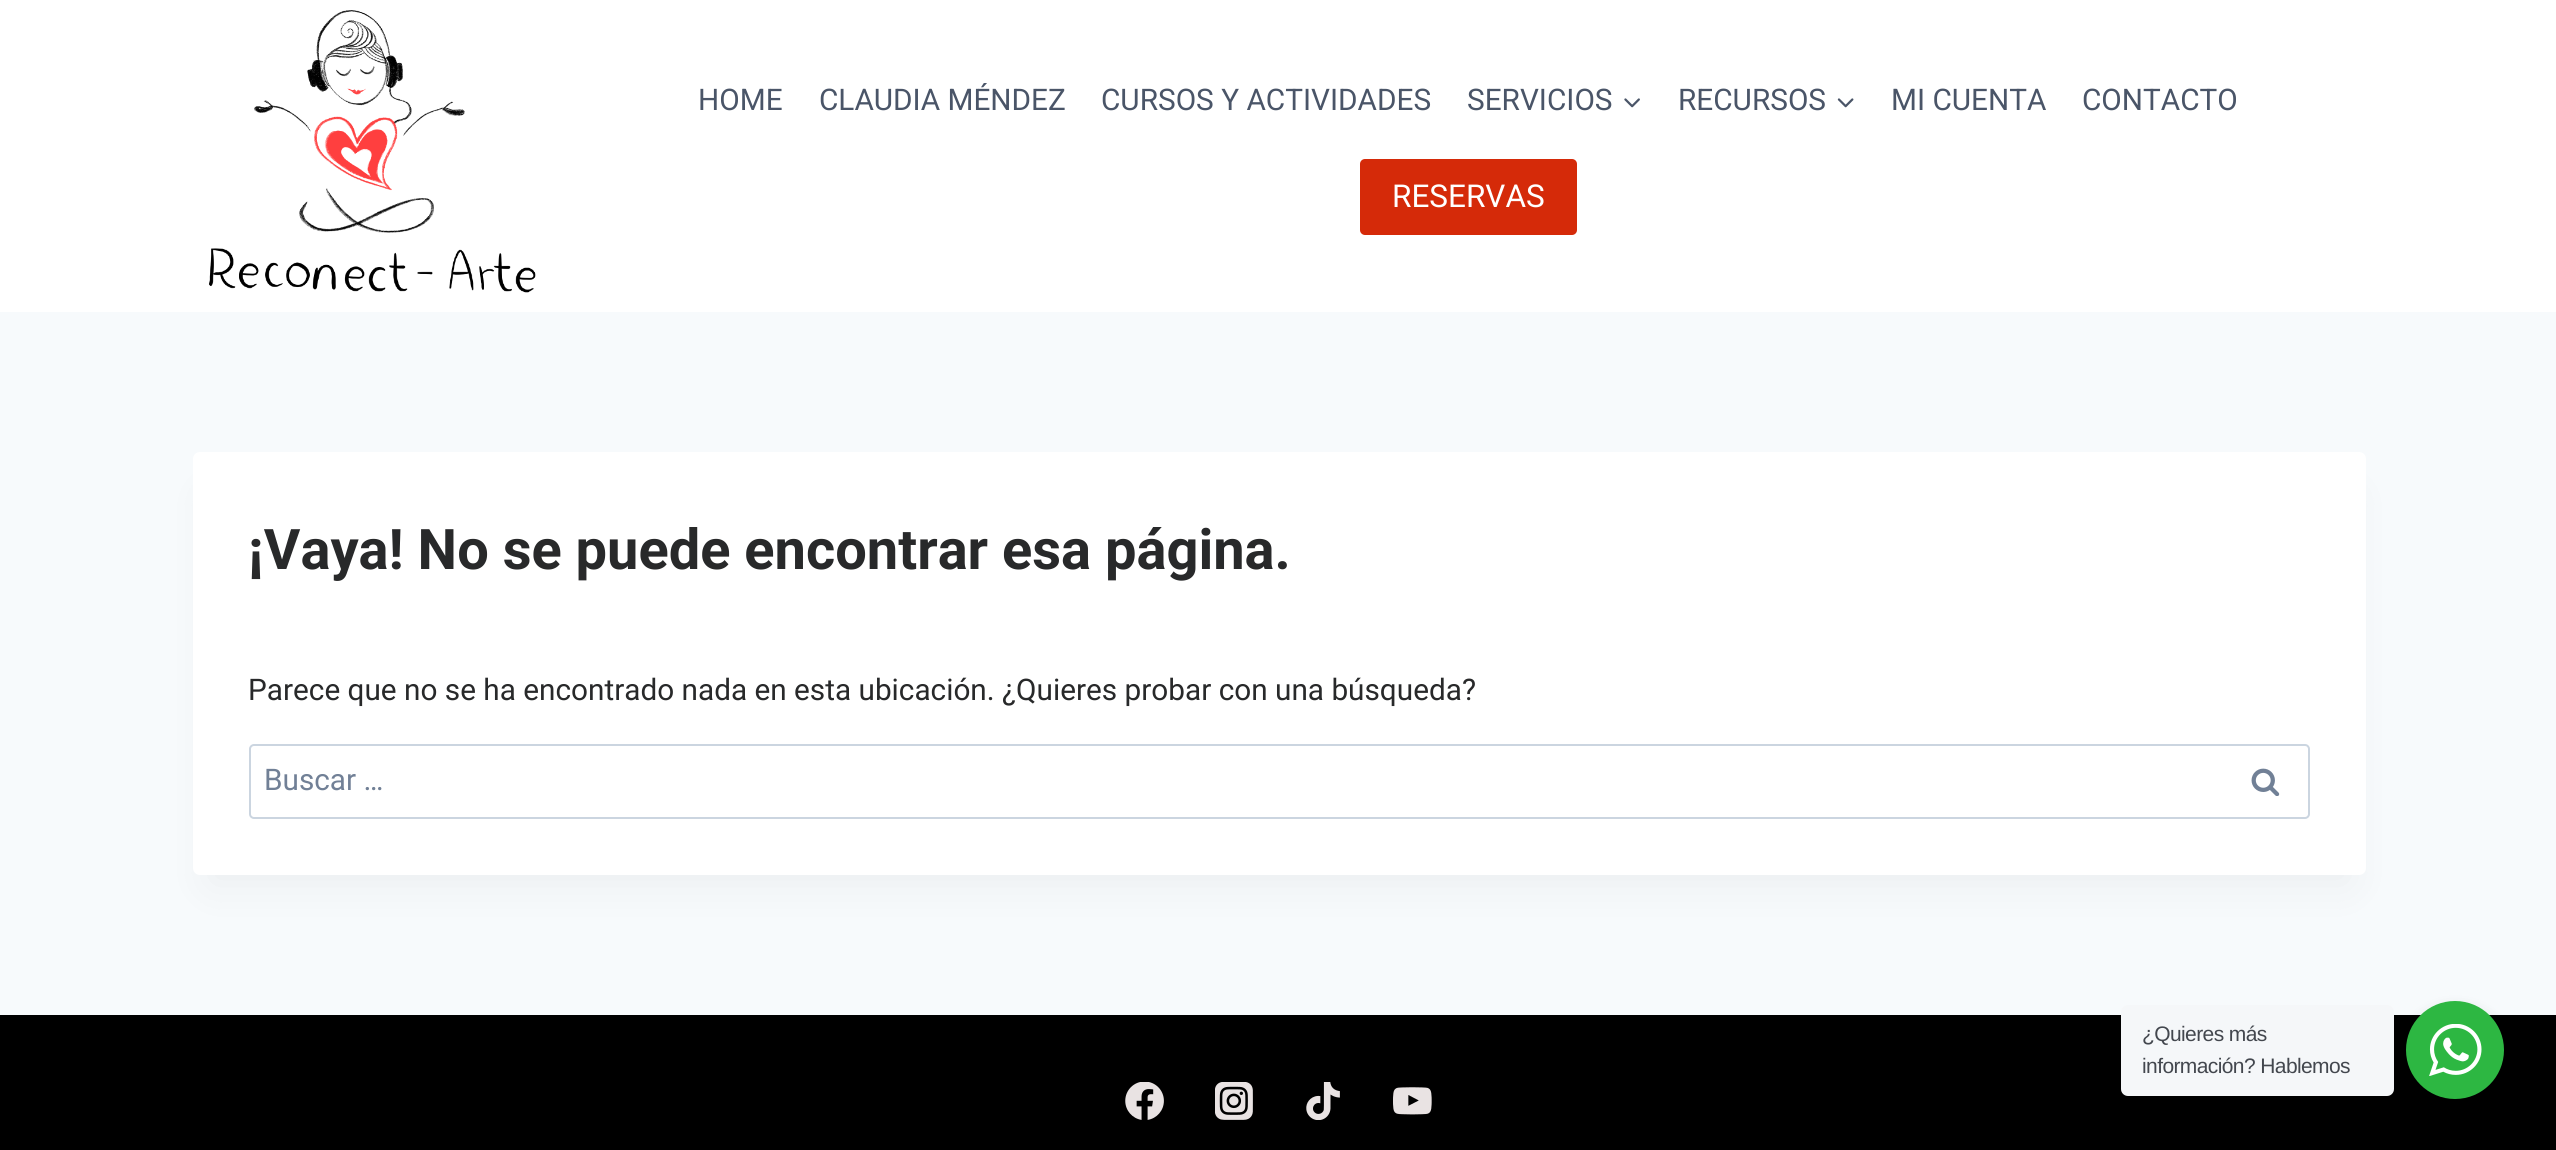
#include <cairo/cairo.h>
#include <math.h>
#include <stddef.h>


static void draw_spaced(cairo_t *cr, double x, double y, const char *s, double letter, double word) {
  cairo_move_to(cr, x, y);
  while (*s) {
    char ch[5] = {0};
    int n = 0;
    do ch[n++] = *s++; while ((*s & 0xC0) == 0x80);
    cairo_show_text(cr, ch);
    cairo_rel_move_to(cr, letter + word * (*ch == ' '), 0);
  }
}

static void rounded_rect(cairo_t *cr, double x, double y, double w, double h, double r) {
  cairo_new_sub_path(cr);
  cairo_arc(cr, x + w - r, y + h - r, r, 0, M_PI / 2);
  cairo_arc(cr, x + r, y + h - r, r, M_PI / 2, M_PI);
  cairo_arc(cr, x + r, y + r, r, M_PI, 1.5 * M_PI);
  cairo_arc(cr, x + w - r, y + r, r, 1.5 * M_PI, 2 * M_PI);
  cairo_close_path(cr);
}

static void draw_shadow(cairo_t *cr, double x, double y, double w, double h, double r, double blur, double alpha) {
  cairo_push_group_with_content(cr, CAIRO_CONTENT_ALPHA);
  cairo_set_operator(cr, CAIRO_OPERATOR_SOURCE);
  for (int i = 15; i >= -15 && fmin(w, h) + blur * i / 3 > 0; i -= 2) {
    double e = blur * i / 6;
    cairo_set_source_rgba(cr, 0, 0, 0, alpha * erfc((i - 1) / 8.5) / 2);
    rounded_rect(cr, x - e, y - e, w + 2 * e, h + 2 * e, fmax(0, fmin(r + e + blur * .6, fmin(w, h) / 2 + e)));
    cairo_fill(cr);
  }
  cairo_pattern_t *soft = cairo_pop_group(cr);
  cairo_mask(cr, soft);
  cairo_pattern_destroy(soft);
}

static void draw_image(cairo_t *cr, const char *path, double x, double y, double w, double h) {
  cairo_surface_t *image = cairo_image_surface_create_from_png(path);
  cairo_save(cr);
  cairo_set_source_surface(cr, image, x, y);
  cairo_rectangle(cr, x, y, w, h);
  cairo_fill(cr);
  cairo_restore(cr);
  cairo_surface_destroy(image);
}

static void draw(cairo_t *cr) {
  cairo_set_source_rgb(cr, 247 / 255.0, 250 / 255.0, 252 / 255.0);
  cairo_paint(cr);
  cairo_set_source_rgb(cr, 1, 1, 1);
  cairo_rectangle(cr, 0, 0, 2556, 312);
  cairo_fill(cr);
  draw_image(cr, "images/1.png", 209, 10, 327, 283);
  draw_image(cr, "images/2.png", 1624, 98, 16, 10);
  draw_image(cr, "images/3.png", 1837, 98, 17, 10);
  cairo_set_source_rgb(cr, 213 / 255.0, 42 / 255.0, 9 / 255.0);
  rounded_rect(cr, 1360, 159, 217, 76, 5);
  cairo_fill(cr);
  cairo_set_source_rgb(cr, 0, 0, 0);
  draw_shadow(cr, 210, 495, 2139, 389, 0, 22, 0.05);
  cairo_set_source_rgb(cr, 1, 1, 1);
  rounded_rect(cr, 193, 452, 2173, 423, 7);
  cairo_fill(cr);
  rounded_rect(cr, 250, 745, 2059, 73, 4);
  cairo_set_source_rgb(cr, 203 / 255.0, 213 / 255.0, 224 / 255.0);
  cairo_stroke(cr);
  draw_image(cr, "images/4.png", 2251, 768, 29, 28);
  cairo_set_source_rgb(cr, 0, 0, 0);
  cairo_rectangle(cr, 0, 1015, 2556, 135);
  cairo_fill(cr);
  draw_image(cr, "images/5.png", 1125, 1082, 39, 38);
  draw_image(cr, "images/6.png", 1215, 1082, 38, 38);
  draw_image(cr, "images/7.png", 1306, 1082, 34, 38);
  draw_image(cr, "images/8.png", 1393, 1087, 39, 28);
  cairo_set_source_rgb(cr, 0, 0, 0);
  draw_shadow(cr, 2403, 1008, 105, 105, 52.5, 7, 0.14);
  cairo_set_source_rgb(cr, 245 / 255.0, 247 / 255.0, 249 / 255.0);
  rounded_rect(cr, 2121, 1005, 273, 91, 7);
  cairo_fill(cr);
  cairo_set_source_rgb(cr, 45 / 255.0, 183 / 255.0, 66 / 255.0);
  cairo_arc(cr, 2455, 1050, 49, 0, 2 * M_PI);
  cairo_fill(cr);
  draw_image(cr, "images/9.png", 2429, 1024, 53, 52);
  cairo_select_font_face(cr, "Roboto", CAIRO_FONT_SLANT_NORMAL, CAIRO_FONT_WEIGHT_NORMAL);
  cairo_set_font_size(cr, 29.75);
  cairo_set_source_rgb(cr, 74 / 255.0, 85 / 255.0, 104 / 255.0);
  cairo_move_to(cr, 698, 110);
  cairo_show_text(cr, "HOME");
  cairo_move_to(cr, 819, 110);
  cairo_show_text(cr, "CLAUDIA MÉNDEZ");
  cairo_move_to(cr, 1101, 110);
  cairo_show_text(cr, "CURSOS Y ACTIVIDADES");
  cairo_move_to(cr, 1467, 110);
  cairo_show_text(cr, "SERVICIOS");
  cairo_move_to(cr, 1678, 110);
  cairo_show_text(cr, "RECURSOS");
  cairo_move_to(cr, 1891, 110);
  cairo_show_text(cr, "MI CUENTA");
  cairo_move_to(cr, 2082, 110);
  cairo_show_text(cr, "CONTACTO");
  cairo_set_font_size(cr, 31.5);
  cairo_set_source_rgb(cr, 1, 1, 1);
  cairo_move_to(cr, 1392, 207);
  cairo_show_text(cr, "RESERVAS");
  cairo_select_font_face(cr, "Roboto", CAIRO_FONT_SLANT_NORMAL, CAIRO_FONT_WEIGHT_BOLD);
  cairo_set_font_size(cr, 56);
  cairo_set_source_rgb(cr, 40 / 255.0, 41 / 255.0, 42 / 255.0);
  cairo_move_to(cr, 248, 569);
  cairo_show_text(cr, "¡Vaya! No se puede encontrar esa página.");
  cairo_select_font_face(cr, "Roboto", CAIRO_FONT_SLANT_NORMAL, CAIRO_FONT_WEIGHT_NORMAL);
  cairo_set_font_size(cr, 29.75);
  cairo_move_to(cr, 248, 700);
  cairo_show_text(cr, "Parece que no se ha encontrado nada en esta ubicación. ¿Quieres probar con una búsqueda?");
  cairo_set_source_rgb(cr, 113 / 255.0, 128 / 255.0, 150 / 255.0);
  cairo_move_to(cr, 264, 790);
  cairo_show_text(cr, "Buscar …");
  cairo_select_font_face(cr, "Liberation Sans", CAIRO_FONT_SLANT_NORMAL, CAIRO_FONT_WEIGHT_NORMAL);
  cairo_set_font_size(cr, 21);
  cairo_set_source_rgb(cr, 67 / 255.0, 71 / 255.0, 78 / 255.0);
  draw_spaced(cr, 2142, 1041, "¿Quieres más", -0.6, 0);
  draw_spaced(cr, 2142, 1073, "información? Hablemos", -0.6, 0);
}

int main(void) {
  cairo_surface_t *surface = cairo_image_surface_create(CAIRO_FORMAT_RGB24, 2556, 1150);
  cairo_t *cr = cairo_create(surface);
  cairo_font_options_t *options = cairo_font_options_create();
  cairo_font_options_set_hint_metrics(options, CAIRO_HINT_METRICS_OFF);
  cairo_font_options_set_hint_style(options, CAIRO_HINT_STYLE_NONE);
  cairo_set_font_options(cr, options);
  cairo_set_miter_limit(cr, 4);
  draw(cr);
  cairo_surface_write_to_png(surface, "out.png");
  cairo_font_options_destroy(options);
  cairo_destroy(cr);
  cairo_surface_destroy(surface);
  return 0;
}
